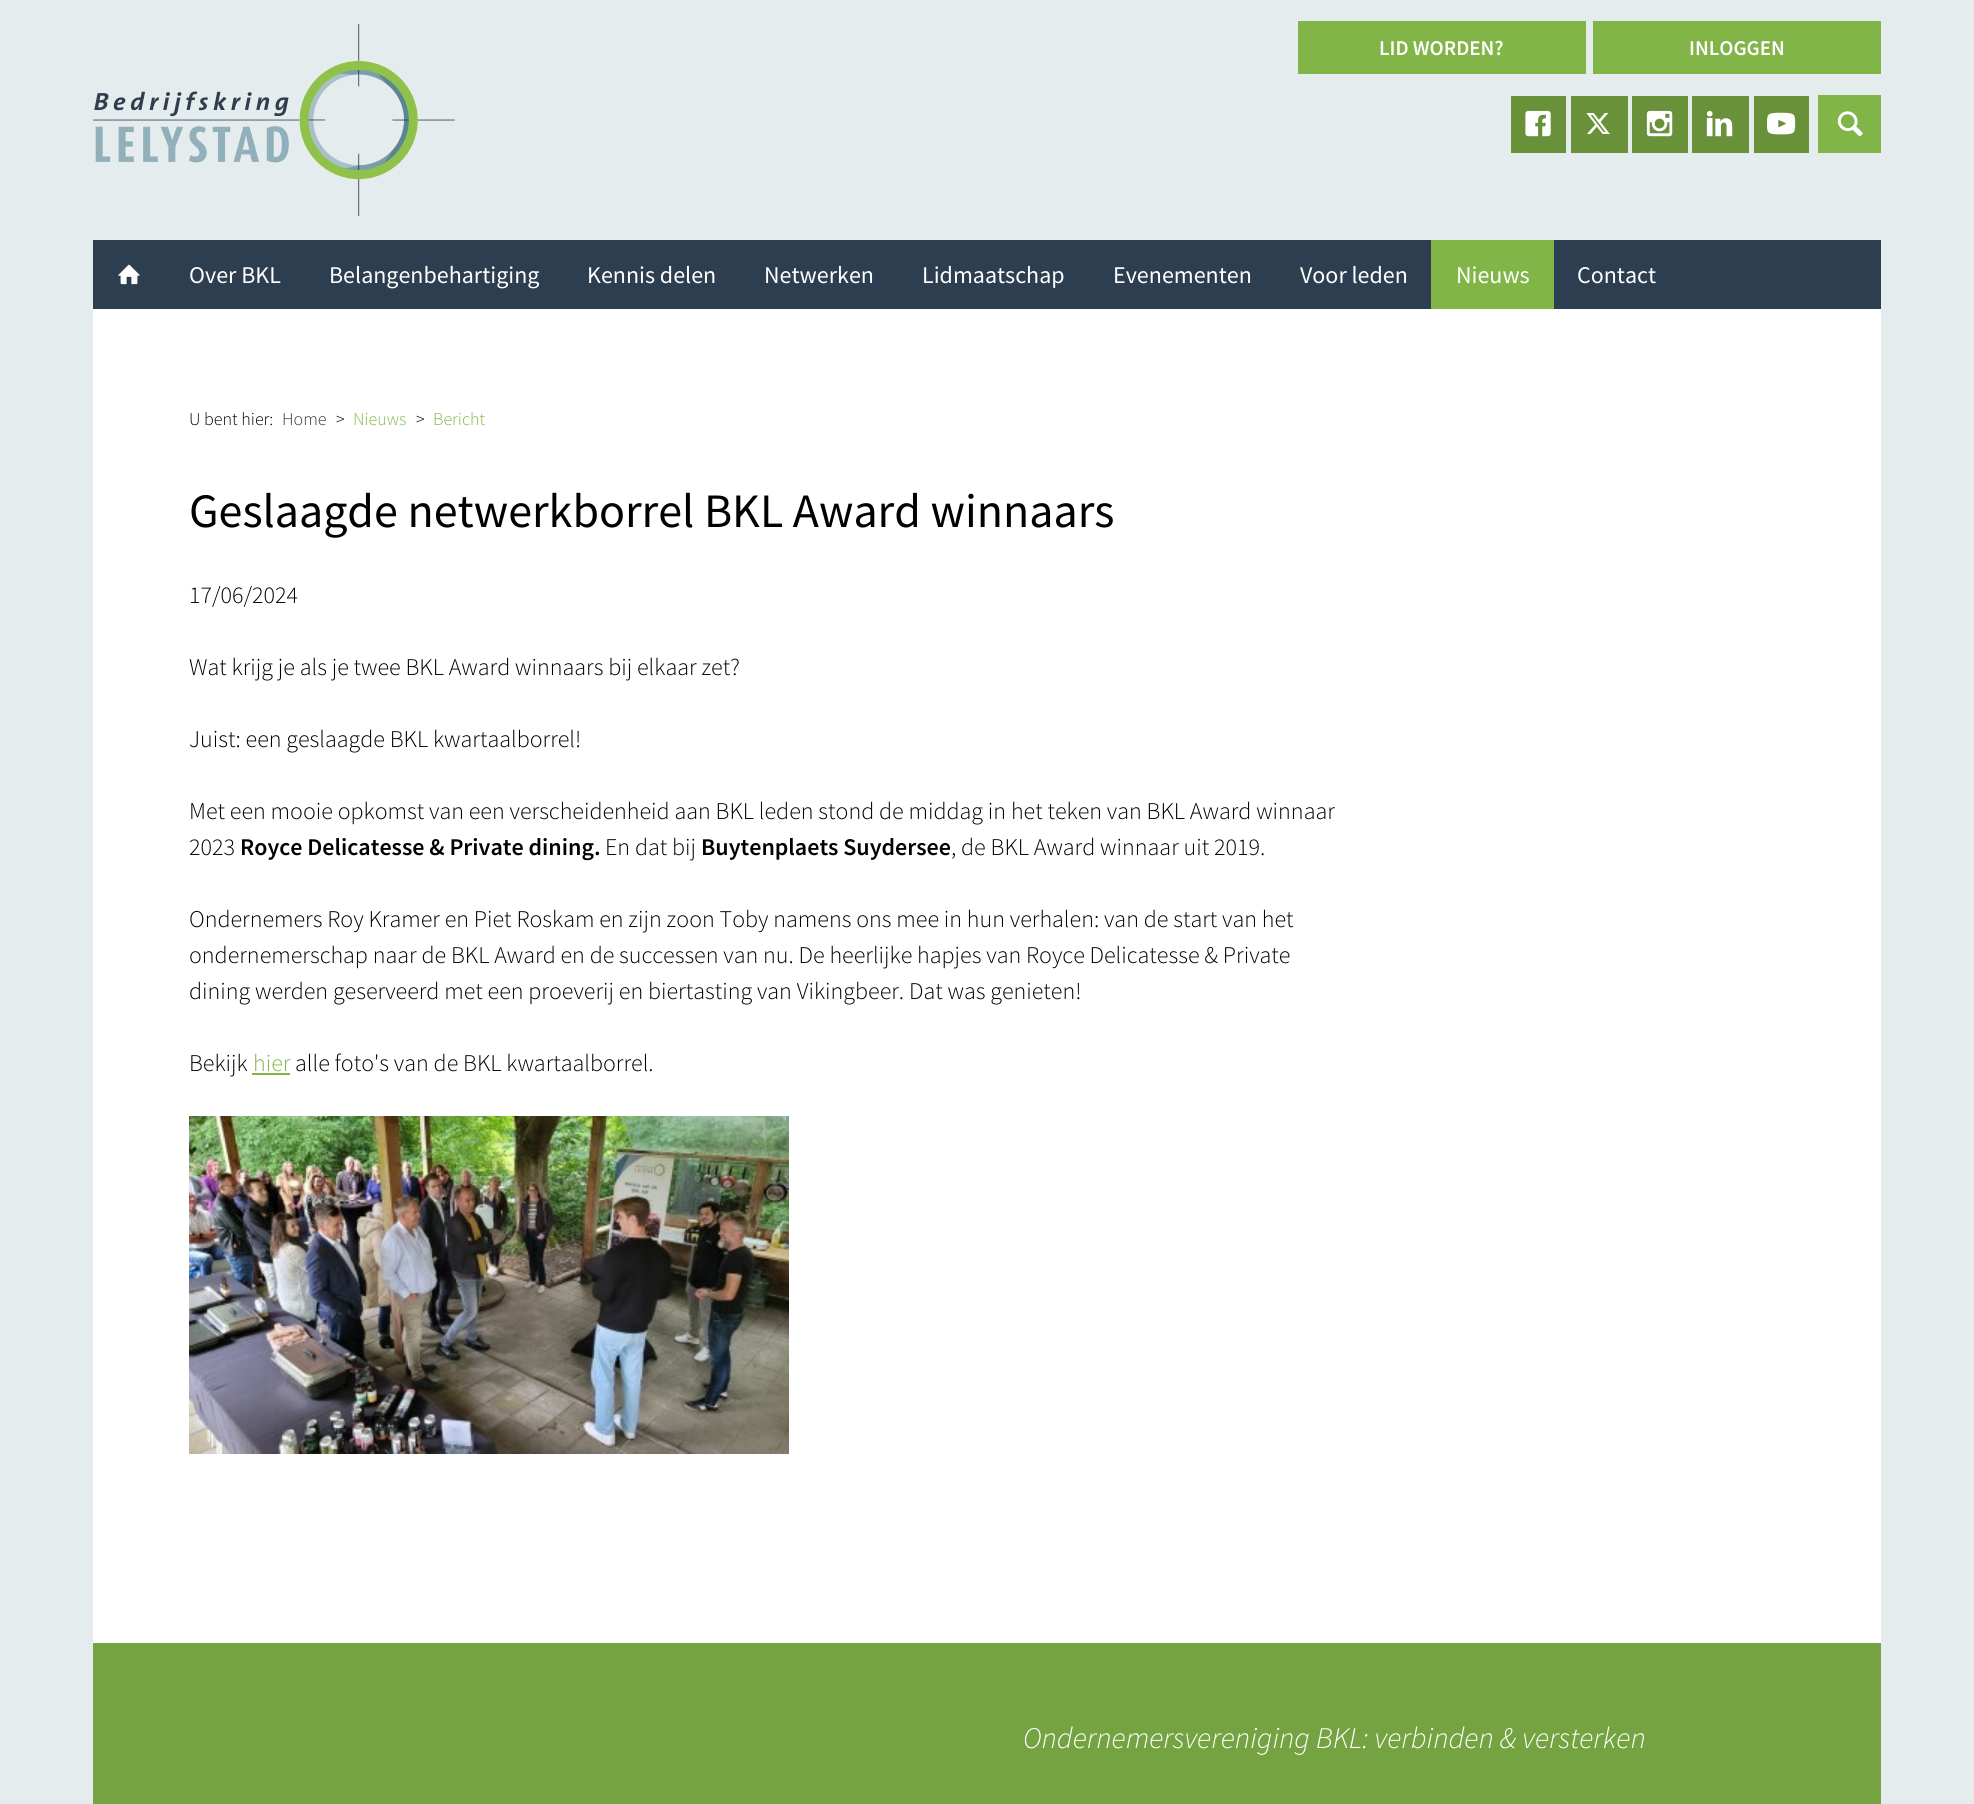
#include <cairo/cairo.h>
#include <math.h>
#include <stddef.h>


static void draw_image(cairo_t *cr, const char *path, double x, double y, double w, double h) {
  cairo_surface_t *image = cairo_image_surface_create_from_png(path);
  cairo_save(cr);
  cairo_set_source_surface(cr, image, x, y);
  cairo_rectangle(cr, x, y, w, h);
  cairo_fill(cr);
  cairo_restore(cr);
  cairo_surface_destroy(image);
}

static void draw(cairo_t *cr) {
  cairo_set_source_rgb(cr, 229 / 255.0, 236 / 255.0, 238 / 255.0);
  cairo_paint(cr);
  draw_image(cr, "images/1.png", 93, 24, 362, 192);
  draw_image(cr, "images/2.png", 93, 24, 362, 192);
  cairo_set_source_rgb(cr, 130 / 255.0, 181 / 255.0, 72 / 255.0);
  cairo_rectangle(cr, 1298, 21, 288, 53);
  cairo_fill(cr);
  cairo_rectangle(cr, 1593, 21, 288, 53);
  cairo_fill(cr);
  cairo_set_source_rgb(cr, 104 / 255.0, 145 / 255.0, 57 / 255.0);
  cairo_rectangle(cr, 1511, 96, 55, 57);
  cairo_fill(cr);
  draw_image(cr, "images/3.png", 1525, 110, 26, 27);
  cairo_rectangle(cr, 1571, 96, 57, 57);
  cairo_fill(cr);
  draw_image(cr, "images/4.png", 1586, 113, 24, 21);
  cairo_rectangle(cr, 1632, 96, 56, 57);
  cairo_fill(cr);
  draw_image(cr, "images/5.png", 1646, 110, 27, 27);
  cairo_rectangle(cr, 1692, 96, 57, 57);
  cairo_fill(cr);
  draw_image(cr, "images/6.png", 1706, 110, 27, 27);
  cairo_rectangle(cr, 1754, 96, 55, 57);
  cairo_fill(cr);
  draw_image(cr, "images/7.png", 1767, 112, 29, 23);
  cairo_set_source_rgb(cr, 130 / 255.0, 181 / 255.0, 72 / 255.0);
  cairo_rectangle(cr, 1818, 95, 63, 58);
  cairo_fill(cr);
  draw_image(cr, "images/8.png", 1837, 111, 26, 26);
  cairo_set_source_rgb(cr, 44 / 255.0, 62 / 255.0, 80 / 255.0);
  cairo_rectangle(cr, 93, 240, 1788, 69);
  cairo_fill(cr);
  draw_image(cr, "images/9.png", 118, 264, 22, 21);
  cairo_set_source_rgb(cr, 130 / 255.0, 181 / 255.0, 72 / 255.0);
  cairo_rectangle(cr, 1431, 240, 123, 69);
  cairo_fill(cr);
  cairo_set_source_rgb(cr, 1, 1, 1);
  cairo_rectangle(cr, 93, 309, 1788, 1334);
  cairo_fill(cr);
  cairo_set_source_rgb(cr, 130 / 255.0, 181 / 255.0, 72 / 255.0);
  cairo_rectangle(cr, 252, 1073, 38, 2);
  cairo_fill(cr);
  draw_image(cr, "images/10.png", 189, 1116, 600, 338);
  cairo_set_source_rgb(cr, 117 / 255.0, 163 / 255.0, 65 / 255.0);
  cairo_rectangle(cr, 93, 1643, 1788, 161);
  cairo_fill(cr);
  cairo_select_font_face(cr, "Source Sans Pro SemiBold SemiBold", CAIRO_FONT_SLANT_NORMAL, CAIRO_FONT_WEIGHT_NORMAL);
  cairo_set_font_size(cr, 21);
  cairo_set_source_rgb(cr, 1, 1, 1);
  cairo_move_to(cr, 1379, 55);
  cairo_show_text(cr, "LID WORDEN?");
  cairo_move_to(cr, 1689, 55);
  cairo_show_text(cr, "INLOGGEN");
  cairo_select_font_face(cr, "Source Sans Pro", CAIRO_FONT_SLANT_NORMAL, CAIRO_FONT_WEIGHT_NORMAL);
  cairo_set_font_size(cr, 24);
  cairo_move_to(cr, 189, 283);
  cairo_show_text(cr, "Over BKL");
  cairo_move_to(cr, 329, 283);
  cairo_show_text(cr, "Belangenbehartiging");
  cairo_move_to(cr, 587, 283);
  cairo_show_text(cr, "Kennis delen");
  cairo_move_to(cr, 764, 283);
  cairo_show_text(cr, "Netwerken");
  cairo_move_to(cr, 922, 283);
  cairo_show_text(cr, "Lidmaatschap");
  cairo_move_to(cr, 1113, 283);
  cairo_show_text(cr, "Evenementen");
  cairo_move_to(cr, 1300, 283);
  cairo_show_text(cr, "Voor leden");
  cairo_move_to(cr, 1456, 283);
  cairo_show_text(cr, "Nieuws");
  cairo_move_to(cr, 1577, 283);
  cairo_show_text(cr, "Contact");
  cairo_select_font_face(cr, "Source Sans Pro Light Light", CAIRO_FONT_SLANT_NORMAL, CAIRO_FONT_WEIGHT_NORMAL);
  cairo_set_font_size(cr, 18);
  cairo_set_source_rgb(cr, 0, 0, 0);
  cairo_move_to(cr, 189, 425);
  cairo_show_text(cr, "U bent hier:");
  cairo_set_source_rgb(cr, 51 / 255.0, 51 / 255.0, 51 / 255.0);
  cairo_move_to(cr, 282, 425);
  cairo_show_text(cr, "Home");
  cairo_set_source_rgb(cr, 0, 0, 0);
  cairo_move_to(cr, 336, 425);
  cairo_show_text(cr, ">");
  cairo_set_source_rgb(cr, 130 / 255.0, 181 / 255.0, 72 / 255.0);
  cairo_move_to(cr, 353, 425);
  cairo_show_text(cr, "Nieuws");
  cairo_set_source_rgb(cr, 0, 0, 0);
  cairo_move_to(cr, 416, 425);
  cairo_show_text(cr, ">");
  cairo_set_source_rgb(cr, 130 / 255.0, 181 / 255.0, 72 / 255.0);
  cairo_move_to(cr, 433, 425);
  cairo_show_text(cr, "Bericht");
  cairo_select_font_face(cr, "Source Sans Pro", CAIRO_FONT_SLANT_NORMAL, CAIRO_FONT_WEIGHT_NORMAL);
  cairo_set_font_size(cr, 48);
  cairo_set_source_rgb(cr, 0, 0, 0);
  cairo_move_to(cr, 189, 527);
  cairo_show_text(cr, "Geslaagde netwerkborrel BKL Award winnaars");
  cairo_select_font_face(cr, "Source Sans Pro Light Light", CAIRO_FONT_SLANT_NORMAL, CAIRO_FONT_WEIGHT_NORMAL);
  cairo_set_font_size(cr, 24);
  cairo_move_to(cr, 189, 603);
  cairo_show_text(cr, "17/06/2024");
  cairo_move_to(cr, 189, 675);
  cairo_show_text(cr, "Wat krijg je als je twee BKL Award winnaars bij elkaar zet?");
  cairo_move_to(cr, 189, 747);
  cairo_show_text(cr, "Juist: een geslaagde BKL kwartaalborrel!");
  cairo_move_to(cr, 189, 819);
  cairo_show_text(cr, "Met een mooie opkomst van een verscheidenheid aan BKL leden stond de middag in het teken van BKL Award winnaar");
  cairo_move_to(cr, 189, 855);
  cairo_show_text(cr, "2023");
  cairo_select_font_face(cr, "Source Sans Pro SemiBold SemiBold", CAIRO_FONT_SLANT_NORMAL, CAIRO_FONT_WEIGHT_NORMAL);
  cairo_move_to(cr, 240, 855);
  cairo_show_text(cr, "Royce Delicatesse & Private dining.");
  cairo_select_font_face(cr, "Source Sans Pro Light Light", CAIRO_FONT_SLANT_NORMAL, CAIRO_FONT_WEIGHT_NORMAL);
  cairo_move_to(cr, 605, 855);
  cairo_show_text(cr, "En dat bij");
  cairo_select_font_face(cr, "Source Sans Pro SemiBold SemiBold", CAIRO_FONT_SLANT_NORMAL, CAIRO_FONT_WEIGHT_NORMAL);
  cairo_move_to(cr, 701, 855);
  cairo_show_text(cr, "Buytenplaets Suydersee");
  cairo_select_font_face(cr, "Source Sans Pro Light Light", CAIRO_FONT_SLANT_NORMAL, CAIRO_FONT_WEIGHT_NORMAL);
  cairo_move_to(cr, 951, 855);
  cairo_show_text(cr, ", de BKL Award winnaar uit 2019.");
  cairo_move_to(cr, 189, 927);
  cairo_show_text(cr, "Ondernemers Roy Kramer en Piet Roskam en zijn zoon Toby namens ons mee in hun verhalen: van de start van het");
  cairo_move_to(cr, 189, 963);
  cairo_show_text(cr, "ondernemerschap naar de BKL Award en de successen van nu. De heerlijke hapjes van Royce Delicatesse & Private");
  cairo_move_to(cr, 189, 999);
  cairo_show_text(cr, "dining werden geserveerd met een proeverij en biertasting van Vikingbeer. Dat was genieten!");
  cairo_move_to(cr, 189, 1071);
  cairo_show_text(cr, "Bekijk");
  cairo_set_source_rgb(cr, 130 / 255.0, 181 / 255.0, 72 / 255.0);
  cairo_move_to(cr, 253, 1071);
  cairo_show_text(cr, "hier");
  cairo_set_source_rgb(cr, 0, 0, 0);
  cairo_move_to(cr, 295, 1071);
  cairo_show_text(cr, "alle foto's van de BKL kwartaalborrel.");
  cairo_select_font_face(cr, "Source Sans Pro Light Light", CAIRO_FONT_SLANT_ITALIC, CAIRO_FONT_WEIGHT_NORMAL);
  cairo_set_font_size(cr, 30);
  cairo_set_source_rgb(cr, 1, 1, 1);
  cairo_move_to(cr, 1023, 1748);
  cairo_show_text(cr, "Ondernemersvereniging BKL: verbinden & versterken");
}

int main(void) {
  cairo_surface_t *surface = cairo_image_surface_create(CAIRO_FORMAT_RGB24, 1974, 1804);
  cairo_t *cr = cairo_create(surface);
  cairo_font_options_t *options = cairo_font_options_create();
  cairo_font_options_set_hint_metrics(options, CAIRO_HINT_METRICS_OFF);
  cairo_font_options_set_hint_style(options, CAIRO_HINT_STYLE_NONE);
  cairo_set_font_options(cr, options);
  cairo_set_miter_limit(cr, 4);
  draw(cr);
  cairo_surface_write_to_png(surface, "out.png");
  cairo_font_options_destroy(options);
  cairo_destroy(cr);
  cairo_surface_destroy(surface);
  return 0;
}
